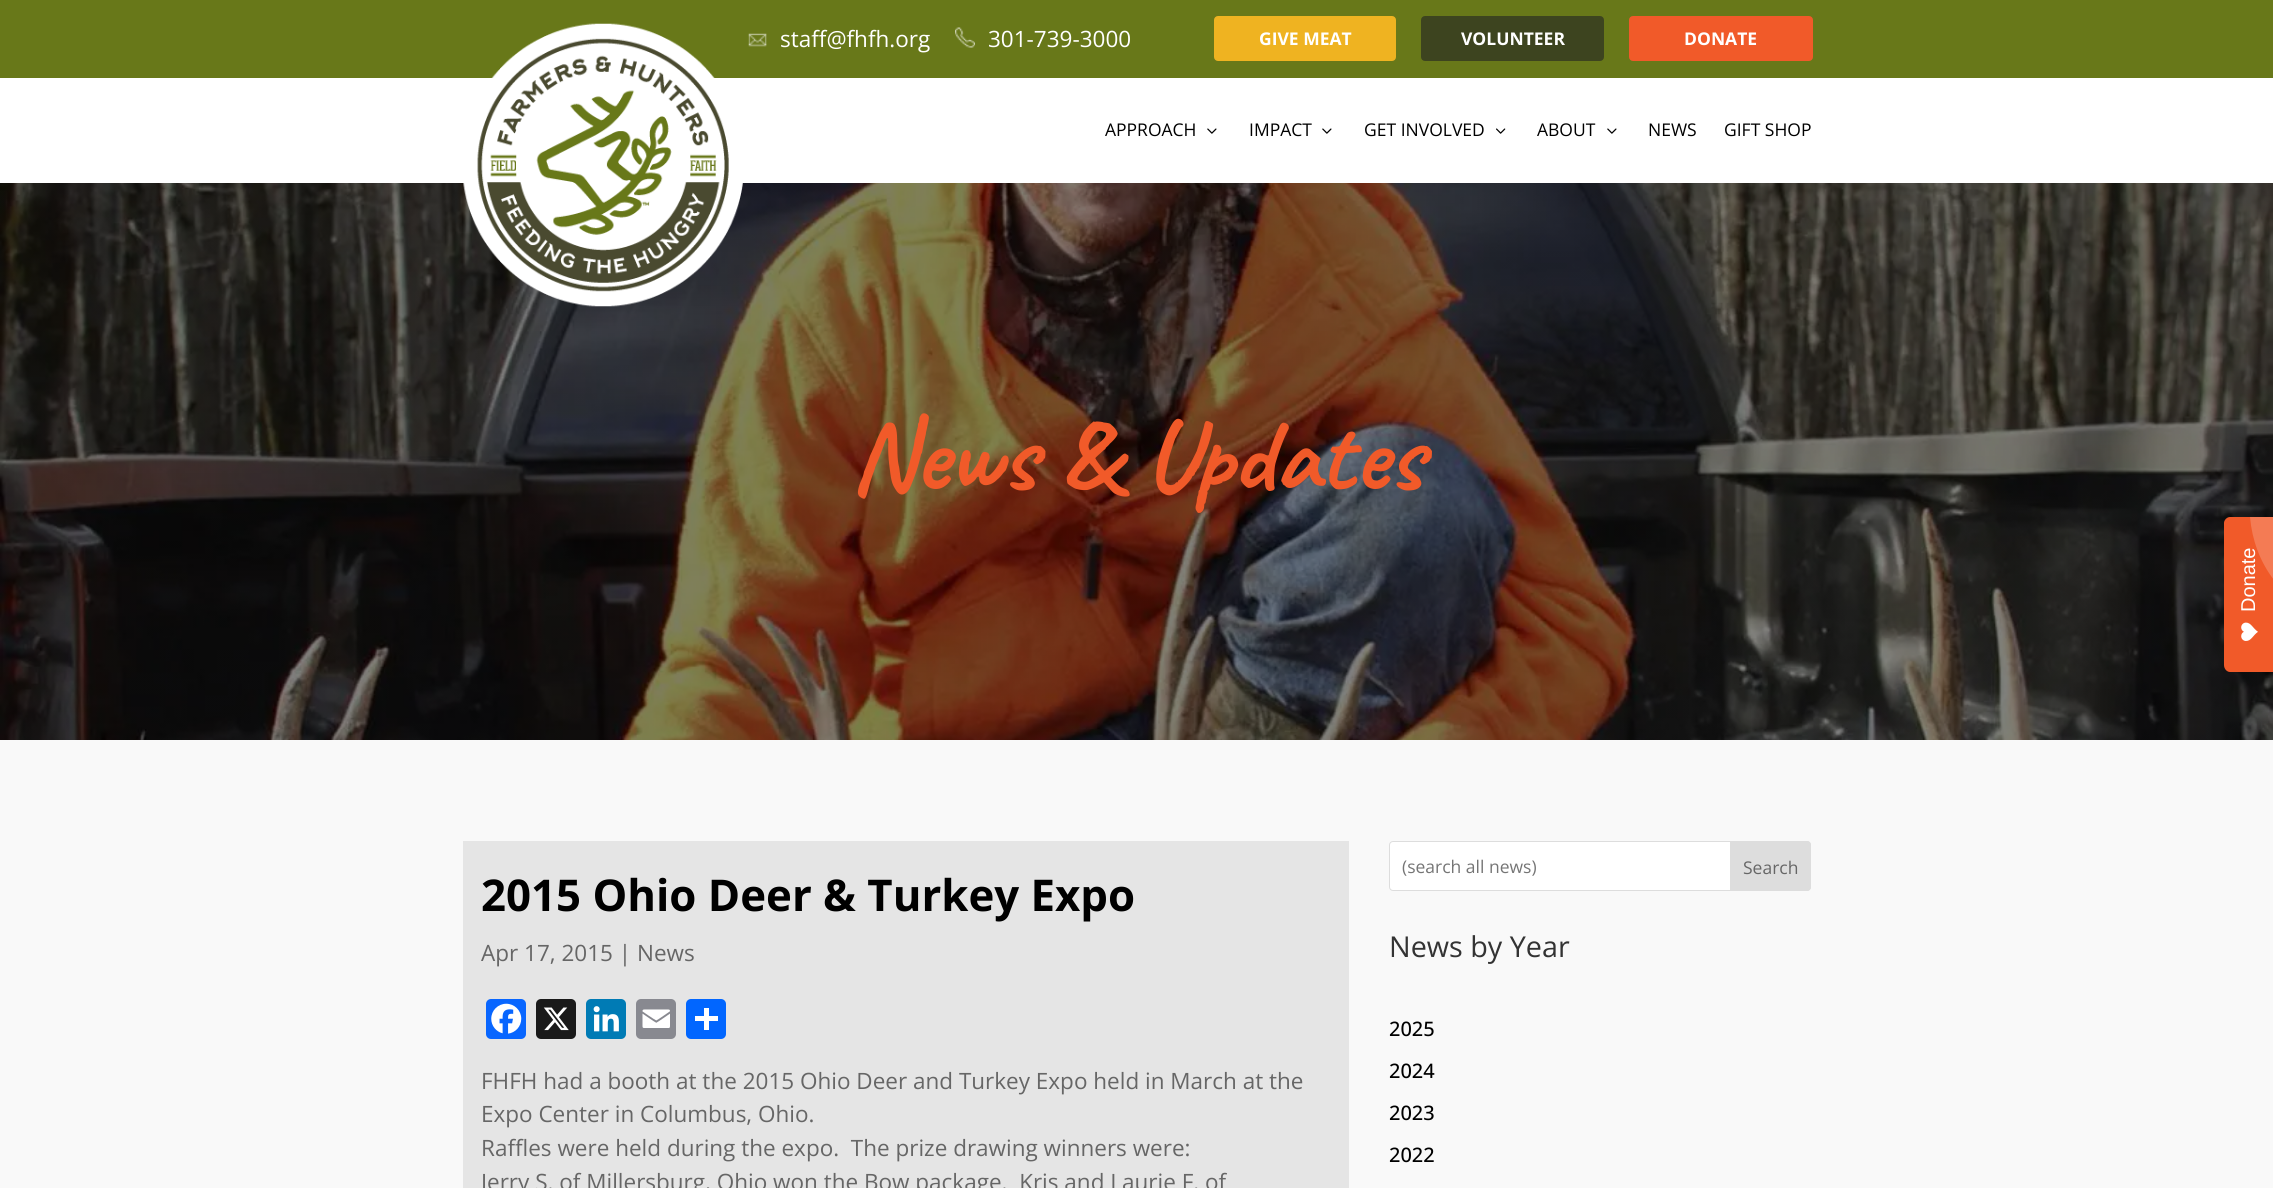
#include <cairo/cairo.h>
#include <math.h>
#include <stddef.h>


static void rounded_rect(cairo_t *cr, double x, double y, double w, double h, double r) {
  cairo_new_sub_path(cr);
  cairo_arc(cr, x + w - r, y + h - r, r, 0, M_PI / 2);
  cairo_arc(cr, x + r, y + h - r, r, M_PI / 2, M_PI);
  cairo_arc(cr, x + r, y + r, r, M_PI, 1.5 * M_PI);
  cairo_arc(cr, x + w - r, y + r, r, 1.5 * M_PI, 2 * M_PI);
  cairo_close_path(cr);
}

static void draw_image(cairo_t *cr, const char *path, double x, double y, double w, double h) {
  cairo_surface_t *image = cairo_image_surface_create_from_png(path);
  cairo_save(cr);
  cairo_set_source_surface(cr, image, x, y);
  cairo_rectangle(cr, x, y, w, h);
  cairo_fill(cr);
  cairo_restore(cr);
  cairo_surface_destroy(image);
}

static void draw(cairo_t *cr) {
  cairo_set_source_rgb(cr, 1, 1, 1);
  cairo_paint(cr);
  cairo_set_source_rgb(cr, 104 / 255.0, 120 / 255.0, 25 / 255.0);
  cairo_rectangle(cr, 0, 0, 2273, 78);
  cairo_fill(cr);
  draw_image(cr, "images/1.png", 748, 33, 19, 14);
  draw_image(cr, "images/2.png", 955, 27, 20, 21);
  cairo_set_source_rgb(cr, 239 / 255.0, 179 / 255.0, 33 / 255.0);
  rounded_rect(cr, 1215.5, 17.5, 179, 42, 2.5);
  cairo_fill_preserve(cr);
  cairo_set_line_width(cr, 3);
  cairo_stroke(cr);
  cairo_set_source_rgb(cr, 61 / 255.0, 68 / 255.0, 31 / 255.0);
  rounded_rect(cr, 1422.5, 17.5, 180, 42, 2.5);
  cairo_fill_preserve(cr);
  cairo_stroke(cr);
  cairo_set_source_rgb(cr, 241 / 255.0, 90 / 255.0, 41 / 255.0);
  rounded_rect(cr, 1630.5, 17.5, 181, 42, 2.5);
  cairo_fill_preserve(cr);
  cairo_stroke(cr);
  draw_image(cr, "images/6.png", 0, 183, 2273, 557);
  draw_image(cr, "images/3.png", 463, 23, 280, 284);
  draw_image(cr, "images/4.png", 1207, 128, 10, 6);
  draw_image(cr, "images/4.png", 1322, 128, 10, 6);
  draw_image(cr, "images/5.png", 1496, 128, 10, 6);
  draw_image(cr, "images/4.png", 1607, 128, 10, 6);
  cairo_set_source_rgb(cr, 249 / 255.0, 249 / 255.0, 249 / 255.0);
  cairo_rectangle(cr, 0, 740, 2273, 448);
  cairo_fill(cr);
  cairo_set_source_rgb(cr, 229 / 255.0, 229 / 255.0, 229 / 255.0);
  cairo_rectangle(cr, 463, 841, 886, 347);
  cairo_fill(cr);
  cairo_set_source_rgb(cr, 8 / 255.0, 102 / 255.0, 1);
  rounded_rect(cr, 486, 999, 40, 40, 5);
  cairo_fill(cr);
  draw_image(cr, "images/7.png", 491, 1003, 31, 31);
  cairo_set_source_rgb(cr, 26 / 255.0, 26 / 255.0, 26 / 255.0);
  rounded_rect(cr, 536, 999, 40, 40, 5);
  cairo_fill(cr);
  draw_image(cr, "images/8.png", 543, 1007, 26, 24);
  cairo_set_source_rgb(cr, 0, 123 / 255.0, 181 / 255.0);
  rounded_rect(cr, 586, 999, 40, 40, 5);
  cairo_fill(cr);
  draw_image(cr, "images/9.png", 593, 1006, 26, 26);
  cairo_set_source_rgb(cr, 136 / 255.0, 137 / 255.0, 144 / 255.0);
  rounded_rect(cr, 636, 999, 40, 40, 5);
  cairo_fill(cr);
  draw_image(cr, "images/10.png", 642, 1009, 28, 19);
  cairo_set_source_rgb(cr, 1 / 255.0, 102 / 255.0, 1);
  rounded_rect(cr, 686, 999, 40, 40, 5);
  cairo_fill(cr);
  cairo_set_source_rgb(cr, 1, 1, 1);
  cairo_rectangle(cr, 704, 1008, 5, 22);
  cairo_fill(cr);
  cairo_rectangle(cr, 695, 1016, 23, 5);
  cairo_fill(cr);
  rounded_rect(cr, 1389.5, 841.5, 421, 49, 3.5);
  cairo_fill_preserve(cr);
  cairo_set_source_rgb(cr, 221 / 255.0, 221 / 255.0, 221 / 255.0);
  cairo_set_line_width(cr, 1);
  cairo_stroke(cr);
  cairo_new_path(cr);
  cairo_move_to(cr, 1730.5, 841.5);
  cairo_line_to(cr, 1807, 841.5);
  cairo_curve_to(cr, 1809, 841.5, 1810.5, 843, 1810.5, 845);
  cairo_line_to(cr, 1810.5, 887);
  cairo_curve_to(cr, 1810.5, 889, 1809, 890.5, 1807, 890.5);
  cairo_line_to(cr, 1730.5, 890.5);
  cairo_close_path(cr);
  cairo_fill_preserve(cr);
  cairo_stroke(cr);
  cairo_set_source_rgb(cr, 241 / 255.0, 90 / 255.0, 41 / 255.0);
  cairo_new_path(cr);
  cairo_move_to(cr, 2224, 665);
  cairo_line_to(cr, 2224, 523);
  cairo_curve_to(cr, 2224, 520, 2227, 517, 2230, 517);
  cairo_line_to(cr, 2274, 517);
  cairo_line_to(cr, 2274, 672);
  cairo_line_to(cr, 2230, 672);
  cairo_curve_to(cr, 2227, 672, 2224, 669, 2224, 665);
  cairo_close_path(cr);
  cairo_fill(cr);
  draw_image(cr, "images/11.png", 2241, 622, 17, 19);
  cairo_select_font_face(cr, "Open Sans", CAIRO_FONT_SLANT_NORMAL, CAIRO_FONT_WEIGHT_NORMAL);
  cairo_set_font_size(cr, 22.5);
  cairo_set_source_rgb(cr, 1, 1, 1);
  cairo_move_to(cr, 780, 47);
  cairo_show_text(cr, "staff@fhfh.org");
  cairo_move_to(cr, 988, 47);
  cairo_show_text(cr, "301-739-3000");
  cairo_select_font_face(cr, "Open Sans", CAIRO_FONT_SLANT_NORMAL, CAIRO_FONT_WEIGHT_BOLD);
  cairo_set_font_size(cr, 17.5);
  cairo_move_to(cr, 1259, 45);
  cairo_show_text(cr, "GIVE MEAT");
  cairo_move_to(cr, 1461, 45);
  cairo_show_text(cr, "VOLUNTEER");
  cairo_move_to(cr, 1684, 45);
  cairo_show_text(cr, "DONATE");
  cairo_select_font_face(cr, "Open Sans", CAIRO_FONT_SLANT_NORMAL, CAIRO_FONT_WEIGHT_NORMAL);
  cairo_set_source_rgb(cr, 0, 0, 0);
  cairo_move_to(cr, 1105, 136);
  cairo_show_text(cr, "APPROACH");
  cairo_move_to(cr, 1249, 136);
  cairo_show_text(cr, "IMPACT");
  cairo_move_to(cr, 1364, 136);
  cairo_show_text(cr, "GET INVOLVED");
  cairo_move_to(cr, 1537, 136);
  cairo_show_text(cr, "ABOUT");
  cairo_move_to(cr, 1648, 136);
  cairo_show_text(cr, "NEWS");
  cairo_move_to(cr, 1724, 136);
  cairo_show_text(cr, "GIFT SHOP");
  cairo_select_font_face(cr, "Caveat", CAIRO_FONT_SLANT_NORMAL, CAIRO_FONT_WEIGHT_BOLD);
  cairo_set_font_size(cr, 102.5);
  cairo_set_source_rgb(cr, 241 / 255.0, 90 / 255.0, 41 / 255.0);
  cairo_move_to(cr, 850, 489);
  cairo_show_text(cr, "News & Updates");
  cairo_select_font_face(cr, "Open Sans", CAIRO_FONT_SLANT_NORMAL, CAIRO_FONT_WEIGHT_BOLD);
  cairo_set_font_size(cr, 43.75);
  cairo_set_source_rgb(cr, 0, 0, 0);
  cairo_move_to(cr, 481, 911);
  cairo_show_text(cr, "2015 Ohio Deer & Turkey Expo");
  cairo_select_font_face(cr, "Open Sans", CAIRO_FONT_SLANT_NORMAL, CAIRO_FONT_WEIGHT_NORMAL);
  cairo_set_font_size(cr, 22.5);
  cairo_set_source_rgb(cr, 102 / 255.0, 102 / 255.0, 102 / 255.0);
  cairo_move_to(cr, 481, 961);
  cairo_show_text(cr, "Apr 17, 2015 | News");
  cairo_move_to(cr, 481, 1089);
  cairo_show_text(cr, "FHFH had a booth at the 2015 Ohio Deer and Turkey Expo held in March at the");
  cairo_move_to(cr, 481, 1122);
  cairo_show_text(cr, "Expo Center in Columbus, Ohio.");
  cairo_move_to(cr, 481, 1156);
  cairo_show_text(cr, "Raffles were held during the expo.  The prize drawing winners were:");
  cairo_move_to(cr, 481, 1190);
  cairo_show_text(cr, "Jerry S. of Millersburg, Ohio won the Bow package.  Kris and Laurie F. of");
  cairo_set_font_size(cr, 17.5);
  cairo_set_source_rgb(cr, 117 / 255.0, 117 / 255.0, 117 / 255.0);
  cairo_move_to(cr, 1402, 873);
  cairo_show_text(cr, "(search all news)");
  cairo_set_source_rgb(cr, 102 / 255.0, 102 / 255.0, 102 / 255.0);
  cairo_move_to(cr, 1743, 874);
  cairo_show_text(cr, "Search");
  cairo_set_font_size(cr, 28.75);
  cairo_set_source_rgb(cr, 51 / 255.0, 51 / 255.0, 51 / 255.0);
  cairo_move_to(cr, 1389, 957);
  cairo_show_text(cr, "News by Year");
  cairo_select_font_face(cr, "Open Sans Medium", CAIRO_FONT_SLANT_NORMAL, CAIRO_FONT_WEIGHT_NORMAL);
  cairo_set_font_size(cr, 20);
  cairo_set_source_rgb(cr, 0, 0, 0);
  cairo_move_to(cr, 1389, 1036);
  cairo_show_text(cr, "2025");
  cairo_move_to(cr, 1389, 1078);
  cairo_show_text(cr, "2024");
  cairo_move_to(cr, 1389, 1120);
  cairo_show_text(cr, "2023");
  cairo_move_to(cr, 1389, 1162);
  cairo_show_text(cr, "2022");
  cairo_select_font_face(cr, "Liberation Sans", CAIRO_FONT_SLANT_NORMAL, CAIRO_FONT_WEIGHT_NORMAL);
  cairo_set_source_rgb(cr, 1, 1, 1);
  cairo_save(cr);
  cairo_translate(cr, 2255, 612);
  cairo_rotate(cr, -90 * M_PI / 180);
  cairo_move_to(cr, 0, 0);
  cairo_show_text(cr, "Donate");
  cairo_restore(cr);
  cairo_set_source_rgb(cr, 244 / 255.0, 123 / 255.0, 84 / 255.0);
  cairo_new_path(cr);
  cairo_move_to(cr, 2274, 580);
  cairo_curve_to(cr, 2260, 562, 2252, 540, 2250, 517);
  cairo_line_to(cr, 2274, 517);
  cairo_close_path(cr);
  cairo_fill(cr);
}

int main(void) {
  cairo_surface_t *surface = cairo_image_surface_create(CAIRO_FORMAT_RGB24, 2273, 1188);
  cairo_t *cr = cairo_create(surface);
  cairo_font_options_t *options = cairo_font_options_create();
  cairo_font_options_set_hint_metrics(options, CAIRO_HINT_METRICS_OFF);
  cairo_font_options_set_hint_style(options, CAIRO_HINT_STYLE_NONE);
  cairo_set_font_options(cr, options);
  cairo_set_miter_limit(cr, 4);
  draw(cr);
  cairo_surface_write_to_png(surface, "out.png");
  cairo_font_options_destroy(options);
  cairo_destroy(cr);
  cairo_surface_destroy(surface);
  return 0;
}
